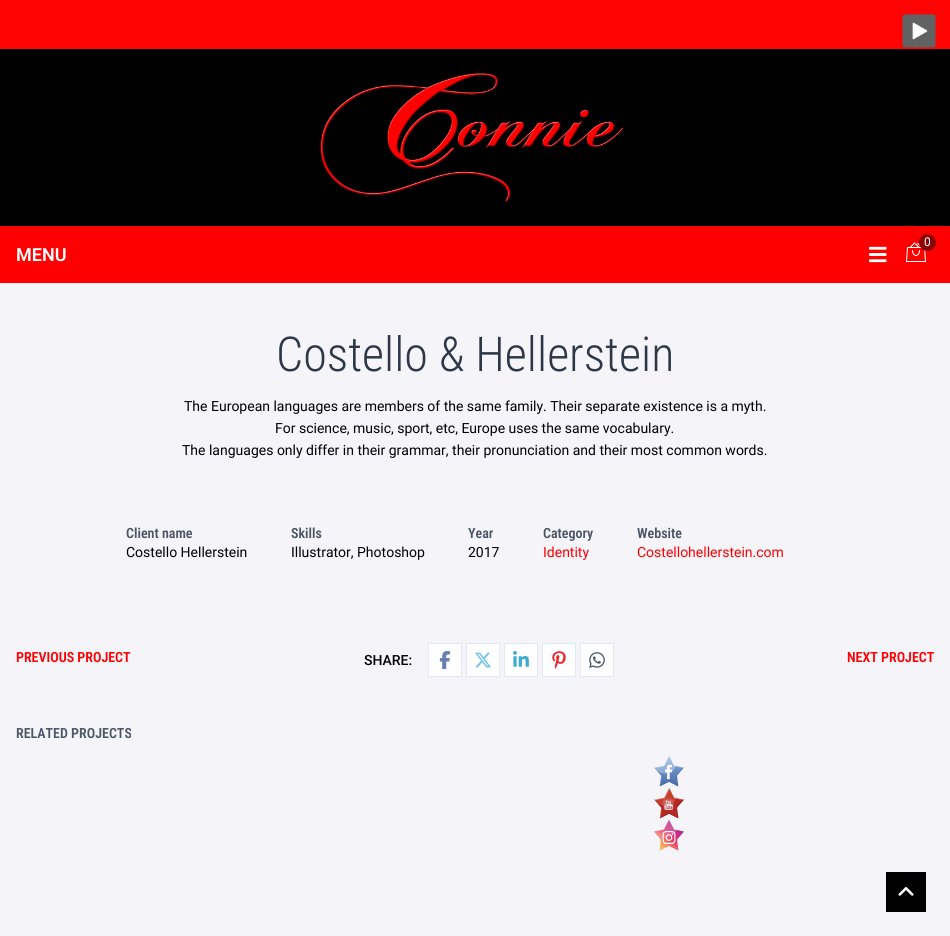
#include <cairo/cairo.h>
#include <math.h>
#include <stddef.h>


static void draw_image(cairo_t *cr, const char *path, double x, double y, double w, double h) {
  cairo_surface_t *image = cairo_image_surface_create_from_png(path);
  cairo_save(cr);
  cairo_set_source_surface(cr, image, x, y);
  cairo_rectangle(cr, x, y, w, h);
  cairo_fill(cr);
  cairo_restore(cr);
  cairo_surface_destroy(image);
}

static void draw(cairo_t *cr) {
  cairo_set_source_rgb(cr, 245 / 255.0, 245 / 255.0, 249 / 255.0);
  cairo_paint(cr);
  cairo_set_source_rgb(cr, 1, 2 / 255.0, 2 / 255.0);
  cairo_rectangle(cr, 0, 0, 950, 48);
  cairo_fill(cr);
  draw_image(cr, "images/1.png", 902, 14, 34, 34);
  cairo_set_source_rgb(cr, 1, 0, 0);
  cairo_rectangle(cr, 0, 48, 950, 1);
  cairo_fill(cr);
  cairo_set_source_rgb(cr, 0, 0, 0);
  cairo_rectangle(cr, 0, 49, 950, 177);
  cairo_fill(cr);
  draw_image(cr, "images/2.png", 320, 73, 304, 129);
  cairo_set_source_rgb(cr, 1, 0, 0);
  cairo_rectangle(cr, 0, 226, 950, 57);
  cairo_fill(cr);
  draw_image(cr, "images/3.png", 906, 242, 20, 20);
  cairo_set_source_rgb(cr, 139 / 255.0, 0, 0);
  cairo_arc(cr, 927.5, 242.5, 8.5, 0, 2 * M_PI);
  cairo_fill(cr);
  draw_image(cr, "images/4.png", 869, 246, 18, 17);
  cairo_rectangle(cr, 428.5, 643.5, 33, 33);
  cairo_set_source_rgb(cr, 226 / 255.0, 232 / 255.0, 240 / 255.0);
  cairo_set_line_width(cr, 1);
  cairo_stroke(cr);
  cairo_set_source_rgb(cr, 1, 1, 1);
  cairo_rectangle(cr, 429, 644, 32, 32);
  cairo_fill(cr);
  draw_image(cr, "images/5.png", 439, 651, 12, 18);
  cairo_rectangle(cr, 466.5, 643.5, 33, 33);
  cairo_set_source_rgb(cr, 226 / 255.0, 232 / 255.0, 240 / 255.0);
  cairo_stroke(cr);
  cairo_set_source_rgb(cr, 1, 1, 1);
  cairo_rectangle(cr, 467, 644, 32, 32);
  cairo_fill(cr);
  draw_image(cr, "images/6.png", 475, 652, 16, 16);
  cairo_rectangle(cr, 504.5, 643.5, 33, 33);
  cairo_set_source_rgb(cr, 226 / 255.0, 232 / 255.0, 240 / 255.0);
  cairo_stroke(cr);
  cairo_set_source_rgb(cr, 1, 1, 1);
  cairo_rectangle(cr, 505, 644, 32, 32);
  cairo_fill(cr);
  draw_image(cr, "images/7.png", 513, 651, 16, 16);
  cairo_rectangle(cr, 542.5, 643.5, 33, 33);
  cairo_set_source_rgb(cr, 226 / 255.0, 232 / 255.0, 240 / 255.0);
  cairo_stroke(cr);
  cairo_set_source_rgb(cr, 1, 1, 1);
  cairo_rectangle(cr, 543, 644, 32, 32);
  cairo_fill(cr);
  draw_image(cr, "images/8.png", 552, 651, 14, 18);
  cairo_rectangle(cr, 580.5, 643.5, 33, 33);
  cairo_set_source_rgb(cr, 226 / 255.0, 232 / 255.0, 240 / 255.0);
  cairo_stroke(cr);
  cairo_set_source_rgb(cr, 1, 1, 1);
  cairo_rectangle(cr, 581, 644, 32, 32);
  cairo_fill(cr);
  draw_image(cr, "images/9.png", 589, 652, 16, 16);
  draw_image(cr, "images/10.png", 654, 756, 30, 31);
  draw_image(cr, "images/11.png", 654, 788, 30, 31);
  draw_image(cr, "images/12.png", 654, 820, 30, 31);
  cairo_set_source_rgb(cr, 0, 0, 0);
  cairo_rectangle(cr, 886, 872, 40, 40);
  cairo_fill(cr);
  draw_image(cr, "images/13.png", 898, 887, 16, 9);
  cairo_select_font_face(cr, "Roboto", CAIRO_FONT_SLANT_NORMAL, CAIRO_FONT_WEIGHT_NORMAL);
  cairo_set_font_size(cr, 12);
  cairo_set_source_rgb(cr, 1, 1, 1);
  cairo_move_to(cr, 924, 246);
  cairo_show_text(cr, "0");
  cairo_select_font_face(cr, "Roboto SemiBold", CAIRO_FONT_SLANT_NORMAL, CAIRO_FONT_WEIGHT_NORMAL);
  cairo_set_font_size(cr, 18);
  cairo_move_to(cr, 16, 261);
  cairo_show_text(cr, "MENU");
  cairo_select_font_face(cr, "Roboto Condensed Light", CAIRO_FONT_SLANT_NORMAL, CAIRO_FONT_WEIGHT_NORMAL);
  cairo_set_font_size(cr, 48);
  cairo_set_source_rgb(cr, 45 / 255.0, 55 / 255.0, 72 / 255.0);
  cairo_move_to(cr, 276, 371);
  cairo_show_text(cr, "Costello & Hellerstein");
  cairo_select_font_face(cr, "Roboto", CAIRO_FONT_SLANT_NORMAL, CAIRO_FONT_WEIGHT_NORMAL);
  cairo_set_font_size(cr, 14);
  cairo_set_source_rgb(cr, 0, 0, 0);
  cairo_move_to(cr, 184, 411);
  cairo_show_text(cr, "The European languages are members of the same family. Their separate existence is a myth.");
  cairo_move_to(cr, 275, 433);
  cairo_show_text(cr, "For science, music, sport, etc, Europe uses the same vocabulary.");
  cairo_move_to(cr, 182, 455);
  cairo_show_text(cr, "The languages only differ in their grammar, their pronunciation and their most common words.");
  cairo_select_font_face(cr, "Roboto Condensed SemiBold", CAIRO_FONT_SLANT_NORMAL, CAIRO_FONT_WEIGHT_NORMAL);
  cairo_set_source_rgb(cr, 74 / 255.0, 85 / 255.0, 104 / 255.0);
  cairo_move_to(cr, 126, 538);
  cairo_show_text(cr, "Client name");
  cairo_select_font_face(cr, "Roboto", CAIRO_FONT_SLANT_NORMAL, CAIRO_FONT_WEIGHT_NORMAL);
  cairo_set_source_rgb(cr, 0, 0, 0);
  cairo_move_to(cr, 126, 557);
  cairo_show_text(cr, "Costello Hellerstein");
  cairo_select_font_face(cr, "Roboto Condensed SemiBold", CAIRO_FONT_SLANT_NORMAL, CAIRO_FONT_WEIGHT_NORMAL);
  cairo_set_source_rgb(cr, 74 / 255.0, 85 / 255.0, 104 / 255.0);
  cairo_move_to(cr, 291, 538);
  cairo_show_text(cr, "Skills");
  cairo_select_font_face(cr, "Roboto", CAIRO_FONT_SLANT_NORMAL, CAIRO_FONT_WEIGHT_NORMAL);
  cairo_set_source_rgb(cr, 0, 0, 0);
  cairo_move_to(cr, 291, 557);
  cairo_show_text(cr, "Illustrator, Photoshop");
  cairo_select_font_face(cr, "Roboto Condensed SemiBold", CAIRO_FONT_SLANT_NORMAL, CAIRO_FONT_WEIGHT_NORMAL);
  cairo_set_source_rgb(cr, 74 / 255.0, 85 / 255.0, 104 / 255.0);
  cairo_move_to(cr, 468, 538);
  cairo_show_text(cr, "Year");
  cairo_select_font_face(cr, "Roboto", CAIRO_FONT_SLANT_NORMAL, CAIRO_FONT_WEIGHT_NORMAL);
  cairo_set_source_rgb(cr, 0, 0, 0);
  cairo_move_to(cr, 468, 557);
  cairo_show_text(cr, "2017");
  cairo_select_font_face(cr, "Roboto Condensed SemiBold", CAIRO_FONT_SLANT_NORMAL, CAIRO_FONT_WEIGHT_NORMAL);
  cairo_set_source_rgb(cr, 74 / 255.0, 85 / 255.0, 104 / 255.0);
  cairo_move_to(cr, 543, 538);
  cairo_show_text(cr, "Category");
  cairo_select_font_face(cr, "Roboto", CAIRO_FONT_SLANT_NORMAL, CAIRO_FONT_WEIGHT_NORMAL);
  cairo_set_source_rgb(cr, 1, 0, 0);
  cairo_move_to(cr, 543, 557);
  cairo_show_text(cr, "Identity");
  cairo_select_font_face(cr, "Roboto Condensed SemiBold", CAIRO_FONT_SLANT_NORMAL, CAIRO_FONT_WEIGHT_NORMAL);
  cairo_set_source_rgb(cr, 74 / 255.0, 85 / 255.0, 104 / 255.0);
  cairo_move_to(cr, 637, 538);
  cairo_show_text(cr, "Website");
  cairo_select_font_face(cr, "Roboto", CAIRO_FONT_SLANT_NORMAL, CAIRO_FONT_WEIGHT_NORMAL);
  cairo_set_source_rgb(cr, 1, 0, 0);
  cairo_move_to(cr, 637, 557);
  cairo_show_text(cr, "Costellohellerstein.com");
  cairo_select_font_face(cr, "Roboto Condensed SemiBold", CAIRO_FONT_SLANT_NORMAL, CAIRO_FONT_WEIGHT_NORMAL);
  cairo_move_to(cr, 16, 662);
  cairo_show_text(cr, "PREVIOUS PROJECT");
  cairo_select_font_face(cr, "Roboto Medium", CAIRO_FONT_SLANT_NORMAL, CAIRO_FONT_WEIGHT_NORMAL);
  cairo_set_source_rgb(cr, 0, 0, 0);
  cairo_move_to(cr, 364, 665);
  cairo_show_text(cr, "SHARE:");
  cairo_select_font_face(cr, "Roboto Condensed SemiBold", CAIRO_FONT_SLANT_NORMAL, CAIRO_FONT_WEIGHT_NORMAL);
  cairo_set_source_rgb(cr, 1, 0, 0);
  cairo_move_to(cr, 847, 662);
  cairo_show_text(cr, "NEXT PROJECT");
  cairo_set_source_rgb(cr, 74 / 255.0, 85 / 255.0, 104 / 255.0);
  cairo_move_to(cr, 16, 738);
  cairo_show_text(cr, "RELATED PROJECTS");
}

int main(void) {
  cairo_surface_t *surface = cairo_image_surface_create(CAIRO_FORMAT_RGB24, 950, 936);
  cairo_t *cr = cairo_create(surface);
  cairo_font_options_t *options = cairo_font_options_create();
  cairo_font_options_set_hint_metrics(options, CAIRO_HINT_METRICS_OFF);
  cairo_font_options_set_hint_style(options, CAIRO_HINT_STYLE_NONE);
  cairo_set_font_options(cr, options);
  cairo_set_miter_limit(cr, 4);
  draw(cr);
  cairo_surface_write_to_png(surface, "out.png");
  cairo_font_options_destroy(options);
  cairo_destroy(cr);
  cairo_surface_destroy(surface);
  return 0;
}
